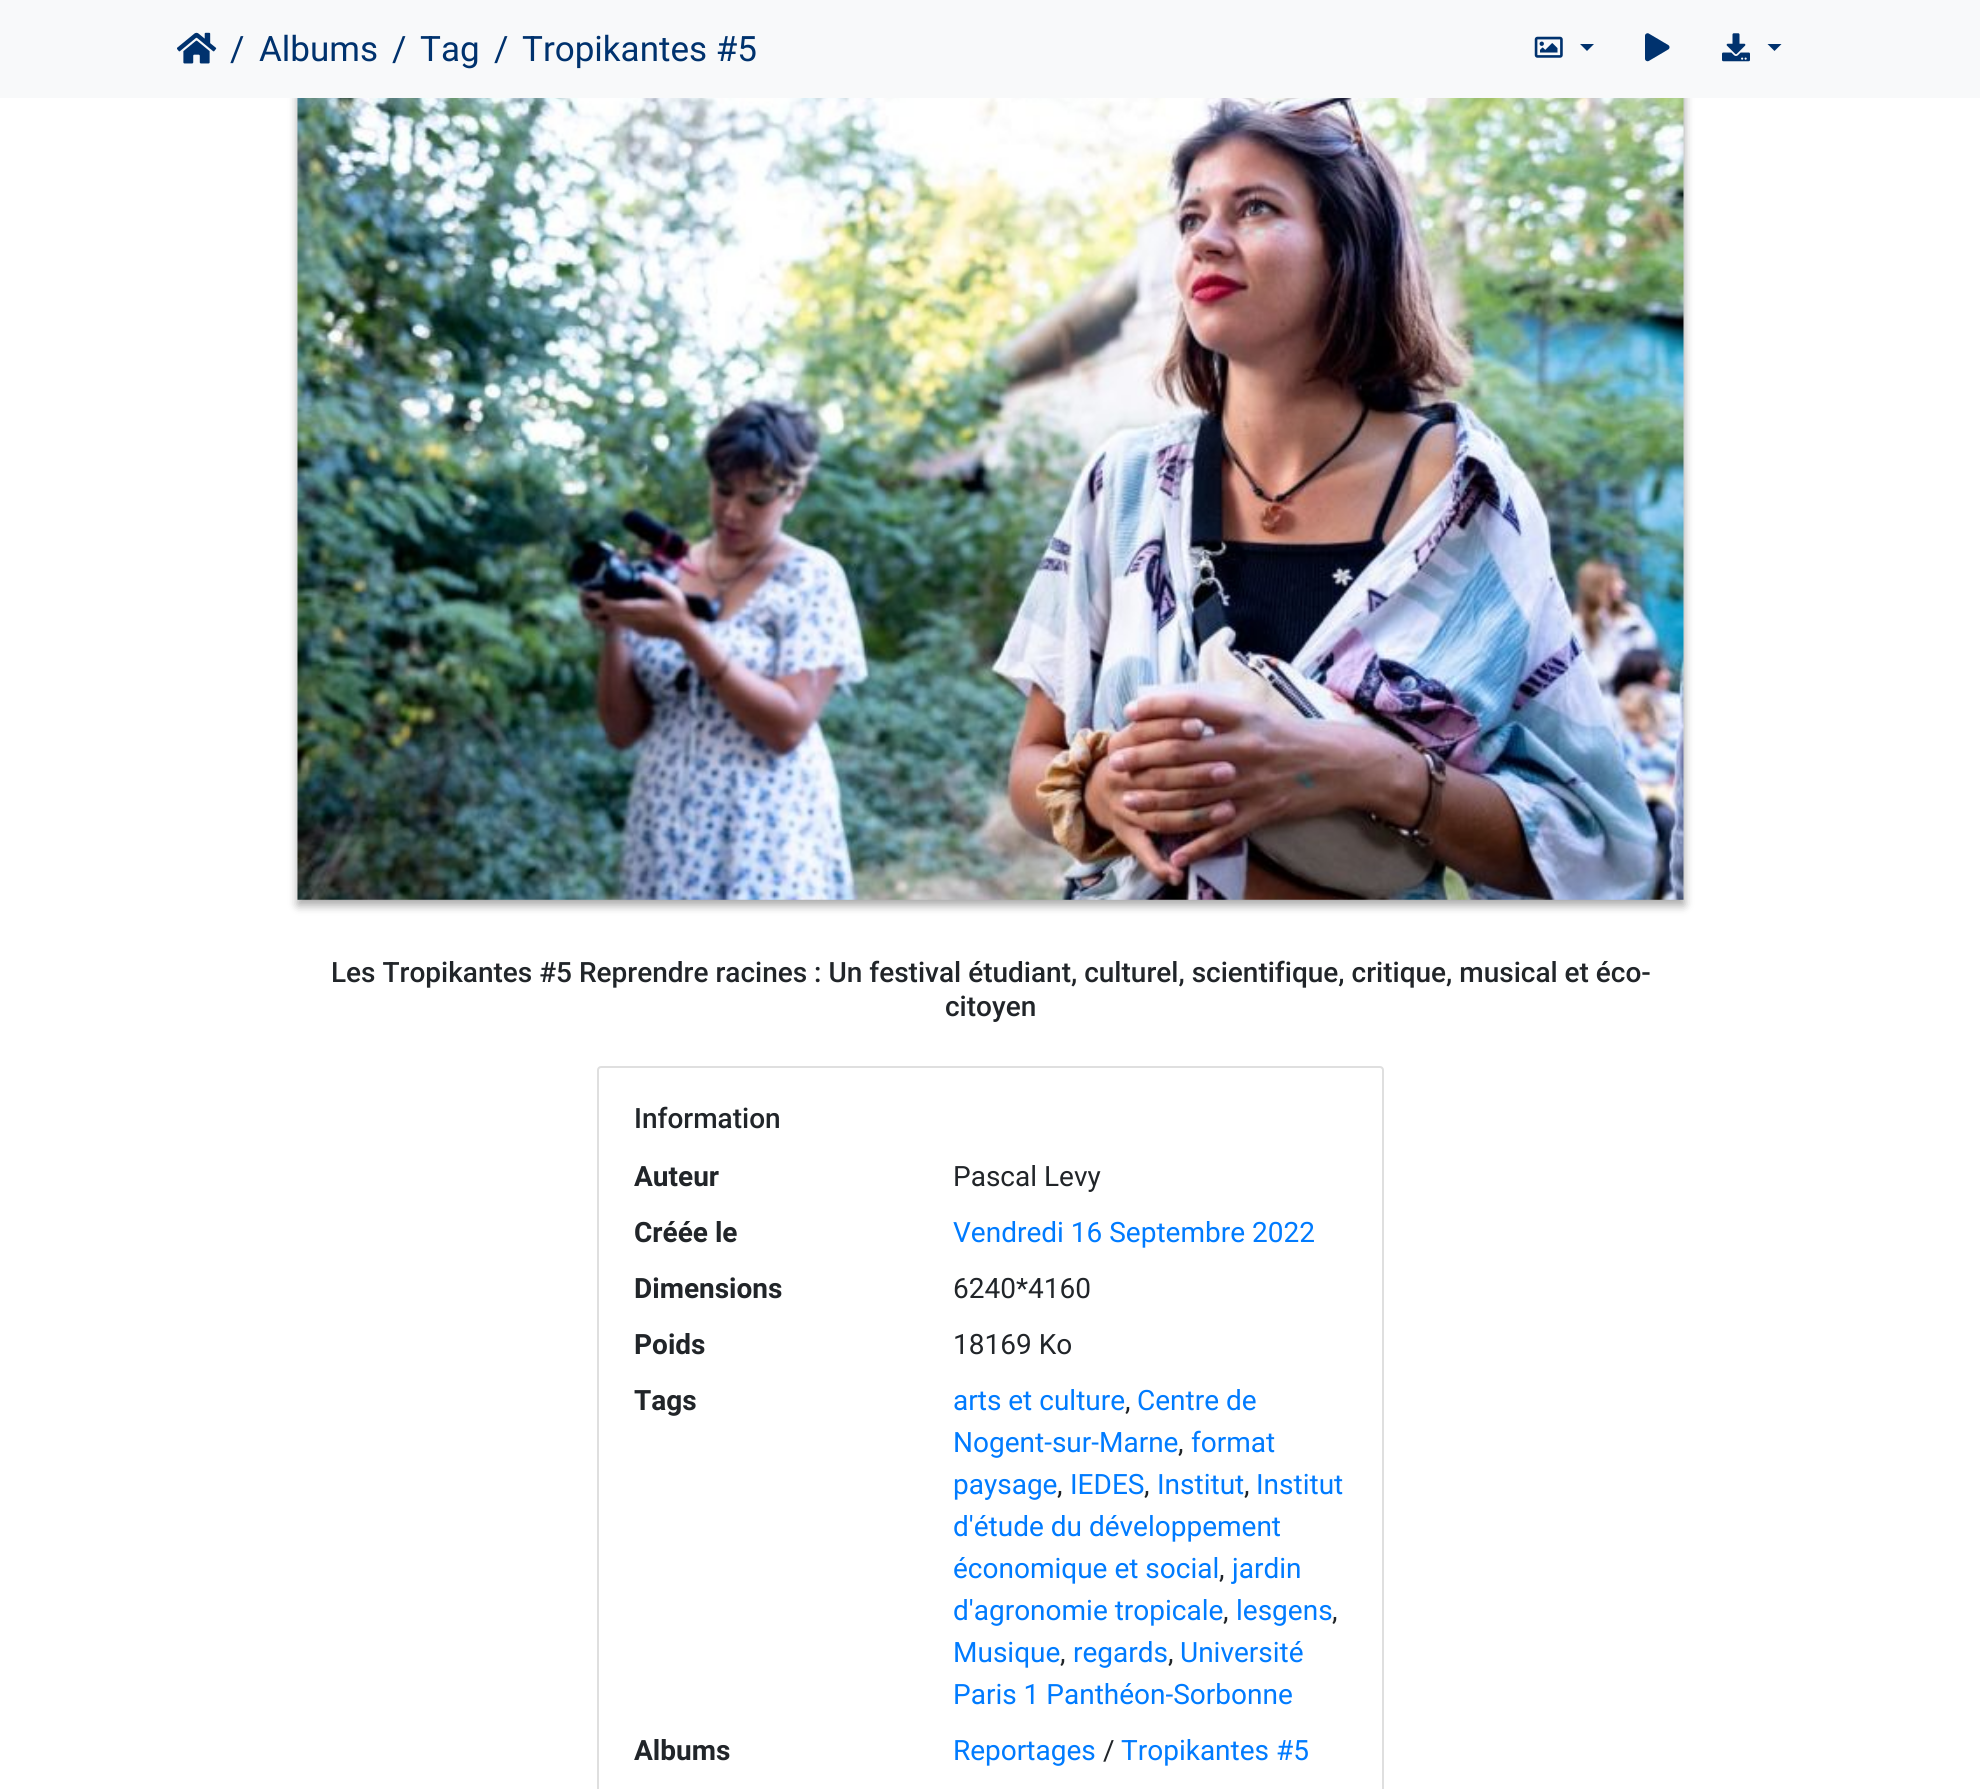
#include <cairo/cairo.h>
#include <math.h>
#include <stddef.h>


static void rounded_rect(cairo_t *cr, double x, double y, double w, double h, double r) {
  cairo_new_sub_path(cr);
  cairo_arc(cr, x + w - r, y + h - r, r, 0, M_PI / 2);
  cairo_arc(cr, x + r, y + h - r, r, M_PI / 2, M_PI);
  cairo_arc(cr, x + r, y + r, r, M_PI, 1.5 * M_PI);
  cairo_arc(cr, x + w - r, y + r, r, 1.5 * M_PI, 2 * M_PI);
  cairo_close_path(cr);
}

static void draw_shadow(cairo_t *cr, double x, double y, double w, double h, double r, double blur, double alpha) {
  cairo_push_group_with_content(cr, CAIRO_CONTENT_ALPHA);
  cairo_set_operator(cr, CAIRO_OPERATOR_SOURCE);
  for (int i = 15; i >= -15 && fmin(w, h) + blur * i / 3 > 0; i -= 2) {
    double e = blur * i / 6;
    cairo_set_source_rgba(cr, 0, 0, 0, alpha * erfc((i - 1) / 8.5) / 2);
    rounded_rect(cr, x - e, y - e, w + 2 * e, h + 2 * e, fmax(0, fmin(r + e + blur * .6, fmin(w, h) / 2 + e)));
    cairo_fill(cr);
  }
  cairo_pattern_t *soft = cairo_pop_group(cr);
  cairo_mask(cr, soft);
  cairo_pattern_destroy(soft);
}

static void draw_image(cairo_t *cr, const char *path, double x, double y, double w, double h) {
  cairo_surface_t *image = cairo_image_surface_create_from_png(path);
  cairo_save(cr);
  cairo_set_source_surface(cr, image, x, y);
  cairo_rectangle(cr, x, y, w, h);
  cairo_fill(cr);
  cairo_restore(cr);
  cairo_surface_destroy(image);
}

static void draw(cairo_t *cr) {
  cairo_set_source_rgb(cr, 1, 1, 1);
  cairo_paint(cr);
  cairo_set_source_rgb(cr, 0, 0, 0);
  draw_shadow(cr, 298, -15, 1386, 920, 0, 5, 0.23);
  draw_shadow(cr, 298, -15, 1386, 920, 0, 5, 0.16);
  cairo_set_source_rgb(cr, 248 / 255.0, 249 / 255.0, 250 / 255.0);
  cairo_rectangle(cr, 0, 0, 1980, 98);
  cairo_fill(cr);
  draw_image(cr, "images/1.png", 177, 32, 40, 32);
  draw_image(cr, "images/2.png", 1534, 36, 29, 22);
  cairo_set_source_rgb(cr, 0, 50 / 255.0, 110 / 255.0);
  cairo_new_path(cr);
  cairo_move_to(cr, 1580, 44);
  cairo_line_to(cr, 1594, 44);
  cairo_line_to(cr, 1587, 51);
  cairo_close_path(cr);
  cairo_fill(cr);
  draw_image(cr, "images/3.png", 1645, 33, 25, 29);
  draw_image(cr, "images/4.png", 1722, 33, 28, 29);
  cairo_new_path(cr);
  cairo_move_to(cr, 1767.5, 44);
  cairo_line_to(cr, 1781.5, 44);
  cairo_line_to(cr, 1774.5, 51);
  cairo_close_path(cr);
  cairo_fill(cr);
  draw_image(cr, "images/5.png", 297, 98, 1387, 802);
  rounded_rect(cr, 598, 1067, 785, 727, 3);
  cairo_set_source_rgb(cr, 223 / 255.0, 223 / 255.0, 223 / 255.0);
  cairo_stroke(cr);
  cairo_select_font_face(cr, "Roboto", CAIRO_FONT_SLANT_NORMAL, CAIRO_FONT_WEIGHT_NORMAL);
  cairo_set_font_size(cr, 35);
  cairo_set_source_rgb(cr, 0, 50 / 255.0, 110 / 255.0);
  cairo_move_to(cr, 230, 61);
  cairo_show_text(cr, "/");
  cairo_move_to(cr, 259, 61);
  cairo_show_text(cr, "Albums");
  cairo_move_to(cr, 392, 61);
  cairo_show_text(cr, "/");
  cairo_move_to(cr, 420, 61);
  cairo_show_text(cr, "Tag");
  cairo_move_to(cr, 494, 61);
  cairo_show_text(cr, "/");
  cairo_move_to(cr, 522, 61);
  cairo_show_text(cr, "Tropikantes #5");
  cairo_select_font_face(cr, "Roboto Medium", CAIRO_FONT_SLANT_NORMAL, CAIRO_FONT_WEIGHT_NORMAL);
  cairo_set_font_size(cr, 28);
  cairo_set_source_rgb(cr, 33 / 255.0, 37 / 255.0, 41 / 255.0);
  cairo_move_to(cr, 331, 982);
  cairo_show_text(cr, "Les Tropikantes #5 Reprendre racines : Un festival étudiant, culturel, scientifique, critique, musical et éco-");
  cairo_move_to(cr, 945, 1016);
  cairo_show_text(cr, "citoyen");
  cairo_move_to(cr, 634, 1128);
  cairo_show_text(cr, "Information");
  cairo_select_font_face(cr, "Roboto", CAIRO_FONT_SLANT_NORMAL, CAIRO_FONT_WEIGHT_BOLD);
  cairo_move_to(cr, 634, 1186);
  cairo_show_text(cr, "Auteur");
  cairo_select_font_face(cr, "Roboto", CAIRO_FONT_SLANT_NORMAL, CAIRO_FONT_WEIGHT_NORMAL);
  cairo_move_to(cr, 953, 1186);
  cairo_show_text(cr, "Pascal Levy");
  cairo_select_font_face(cr, "Roboto", CAIRO_FONT_SLANT_NORMAL, CAIRO_FONT_WEIGHT_BOLD);
  cairo_move_to(cr, 634, 1242);
  cairo_show_text(cr, "Créée le");
  cairo_select_font_face(cr, "Roboto", CAIRO_FONT_SLANT_NORMAL, CAIRO_FONT_WEIGHT_NORMAL);
  cairo_set_source_rgb(cr, 0, 123 / 255.0, 1);
  cairo_move_to(cr, 953, 1242);
  cairo_show_text(cr, "Vendredi 16 Septembre 2022");
  cairo_select_font_face(cr, "Roboto", CAIRO_FONT_SLANT_NORMAL, CAIRO_FONT_WEIGHT_BOLD);
  cairo_set_source_rgb(cr, 33 / 255.0, 37 / 255.0, 41 / 255.0);
  cairo_move_to(cr, 634, 1298);
  cairo_show_text(cr, "Dimensions");
  cairo_select_font_face(cr, "Roboto", CAIRO_FONT_SLANT_NORMAL, CAIRO_FONT_WEIGHT_NORMAL);
  cairo_move_to(cr, 953, 1298);
  cairo_show_text(cr, "6240*4160");
  cairo_select_font_face(cr, "Roboto", CAIRO_FONT_SLANT_NORMAL, CAIRO_FONT_WEIGHT_BOLD);
  cairo_move_to(cr, 634, 1354);
  cairo_show_text(cr, "Poids");
  cairo_select_font_face(cr, "Roboto", CAIRO_FONT_SLANT_NORMAL, CAIRO_FONT_WEIGHT_NORMAL);
  cairo_move_to(cr, 953, 1354);
  cairo_show_text(cr, "18169 Ko");
  cairo_select_font_face(cr, "Roboto", CAIRO_FONT_SLANT_NORMAL, CAIRO_FONT_WEIGHT_BOLD);
  cairo_move_to(cr, 634, 1410);
  cairo_show_text(cr, "Tags");
  cairo_select_font_face(cr, "Roboto", CAIRO_FONT_SLANT_NORMAL, CAIRO_FONT_WEIGHT_NORMAL);
  cairo_set_source_rgb(cr, 0, 123 / 255.0, 1);
  cairo_move_to(cr, 953, 1410);
  cairo_show_text(cr, "arts et culture");
  cairo_set_source_rgb(cr, 33 / 255.0, 37 / 255.0, 41 / 255.0);
  cairo_move_to(cr, 1125, 1410);
  cairo_show_text(cr, ",");
  cairo_set_source_rgb(cr, 0, 123 / 255.0, 1);
  cairo_move_to(cr, 1137, 1410);
  cairo_show_text(cr, "Centre de");
  cairo_move_to(cr, 953, 1452);
  cairo_show_text(cr, "Nogent-sur-Marne");
  cairo_set_source_rgb(cr, 33 / 255.0, 37 / 255.0, 41 / 255.0);
  cairo_move_to(cr, 1178, 1452);
  cairo_show_text(cr, ",");
  cairo_set_source_rgb(cr, 0, 123 / 255.0, 1);
  cairo_move_to(cr, 1191, 1452);
  cairo_show_text(cr, "format");
  cairo_move_to(cr, 953, 1494);
  cairo_show_text(cr, "paysage");
  cairo_set_source_rgb(cr, 33 / 255.0, 37 / 255.0, 41 / 255.0);
  cairo_move_to(cr, 1057, 1494);
  cairo_show_text(cr, ",");
  cairo_set_source_rgb(cr, 0, 123 / 255.0, 1);
  cairo_move_to(cr, 1070, 1494);
  cairo_show_text(cr, "IEDES");
  cairo_set_source_rgb(cr, 33 / 255.0, 37 / 255.0, 41 / 255.0);
  cairo_move_to(cr, 1144, 1494);
  cairo_show_text(cr, ",");
  cairo_set_source_rgb(cr, 0, 123 / 255.0, 1);
  cairo_move_to(cr, 1157, 1494);
  cairo_show_text(cr, "Institut");
  cairo_set_source_rgb(cr, 33 / 255.0, 37 / 255.0, 41 / 255.0);
  cairo_move_to(cr, 1244, 1494);
  cairo_show_text(cr, ",");
  cairo_set_source_rgb(cr, 0, 123 / 255.0, 1);
  cairo_move_to(cr, 1256, 1494);
  cairo_show_text(cr, "Institut");
  cairo_move_to(cr, 953, 1536);
  cairo_show_text(cr, "d'étude du développement");
  cairo_move_to(cr, 953, 1578);
  cairo_show_text(cr, "économique et social");
  cairo_set_source_rgb(cr, 33 / 255.0, 37 / 255.0, 41 / 255.0);
  cairo_move_to(cr, 1219, 1578);
  cairo_show_text(cr, ",");
  cairo_set_source_rgb(cr, 0, 123 / 255.0, 1);
  cairo_move_to(cr, 1232, 1578);
  cairo_show_text(cr, "jardin");
  cairo_move_to(cr, 953, 1620);
  cairo_show_text(cr, "d'agronomie tropicale");
  cairo_set_source_rgb(cr, 33 / 255.0, 37 / 255.0, 41 / 255.0);
  cairo_move_to(cr, 1223, 1620);
  cairo_show_text(cr, ",");
  cairo_set_source_rgb(cr, 0, 123 / 255.0, 1);
  cairo_move_to(cr, 1236, 1620);
  cairo_show_text(cr, "lesgens");
  cairo_set_source_rgb(cr, 33 / 255.0, 37 / 255.0, 41 / 255.0);
  cairo_move_to(cr, 1332, 1620);
  cairo_show_text(cr, ",");
  cairo_set_source_rgb(cr, 0, 123 / 255.0, 1);
  cairo_move_to(cr, 953, 1662);
  cairo_show_text(cr, "Musique");
  cairo_set_source_rgb(cr, 33 / 255.0, 37 / 255.0, 41 / 255.0);
  cairo_move_to(cr, 1060, 1662);
  cairo_show_text(cr, ",");
  cairo_set_source_rgb(cr, 0, 123 / 255.0, 1);
  cairo_move_to(cr, 1073, 1662);
  cairo_show_text(cr, "regards");
  cairo_set_source_rgb(cr, 33 / 255.0, 37 / 255.0, 41 / 255.0);
  cairo_move_to(cr, 1168, 1662);
  cairo_show_text(cr, ",");
  cairo_set_source_rgb(cr, 0, 123 / 255.0, 1);
  cairo_move_to(cr, 1180, 1662);
  cairo_show_text(cr, "Université");
  cairo_move_to(cr, 953, 1704);
  cairo_show_text(cr, "Paris 1 Panthéon-Sorbonne");
  cairo_select_font_face(cr, "Roboto", CAIRO_FONT_SLANT_NORMAL, CAIRO_FONT_WEIGHT_BOLD);
  cairo_set_source_rgb(cr, 33 / 255.0, 37 / 255.0, 41 / 255.0);
  cairo_move_to(cr, 634, 1760);
  cairo_show_text(cr, "Albums");
  cairo_select_font_face(cr, "Roboto", CAIRO_FONT_SLANT_NORMAL, CAIRO_FONT_WEIGHT_NORMAL);
  cairo_set_source_rgb(cr, 0, 123 / 255.0, 1);
  cairo_move_to(cr, 953, 1760);
  cairo_show_text(cr, "Reportages");
  cairo_set_source_rgb(cr, 33 / 255.0, 37 / 255.0, 41 / 255.0);
  cairo_move_to(cr, 1103, 1760);
  cairo_show_text(cr, "/");
  cairo_set_source_rgb(cr, 0, 123 / 255.0, 1);
  cairo_move_to(cr, 1121, 1760);
  cairo_show_text(cr, "Tropikantes #5");
}

int main(void) {
  cairo_surface_t *surface = cairo_image_surface_create(CAIRO_FORMAT_RGB24, 1980, 1789);
  cairo_t *cr = cairo_create(surface);
  cairo_font_options_t *options = cairo_font_options_create();
  cairo_font_options_set_hint_metrics(options, CAIRO_HINT_METRICS_OFF);
  cairo_font_options_set_hint_style(options, CAIRO_HINT_STYLE_NONE);
  cairo_set_font_options(cr, options);
  cairo_set_miter_limit(cr, 4);
  draw(cr);
  cairo_surface_write_to_png(surface, "out.png");
  cairo_font_options_destroy(options);
  cairo_destroy(cr);
  cairo_surface_destroy(surface);
  return 0;
}
